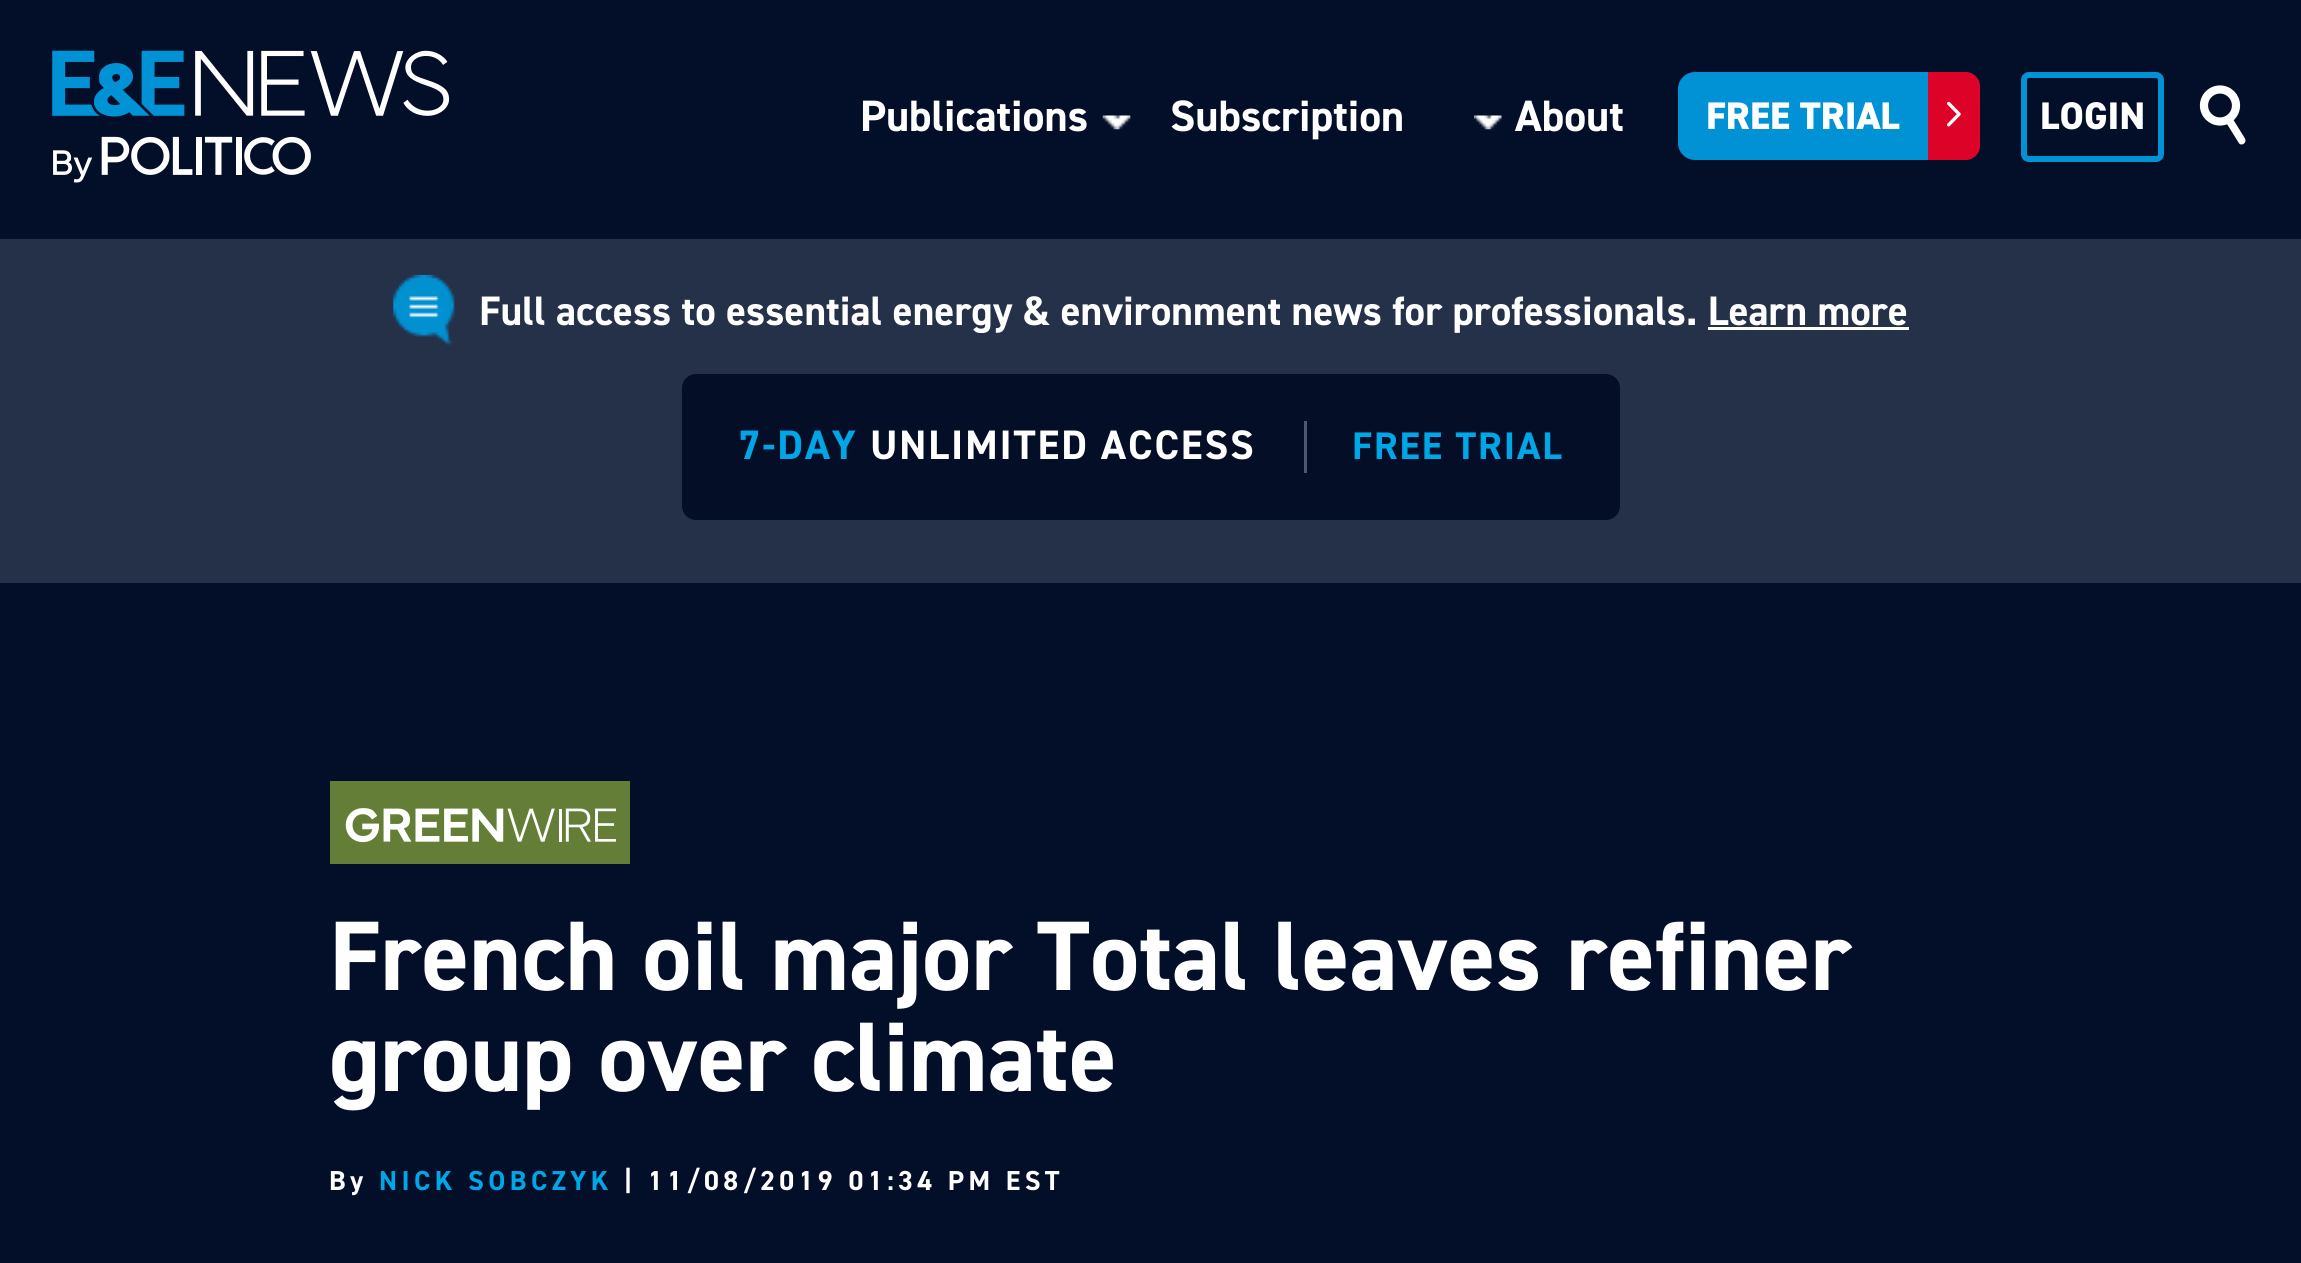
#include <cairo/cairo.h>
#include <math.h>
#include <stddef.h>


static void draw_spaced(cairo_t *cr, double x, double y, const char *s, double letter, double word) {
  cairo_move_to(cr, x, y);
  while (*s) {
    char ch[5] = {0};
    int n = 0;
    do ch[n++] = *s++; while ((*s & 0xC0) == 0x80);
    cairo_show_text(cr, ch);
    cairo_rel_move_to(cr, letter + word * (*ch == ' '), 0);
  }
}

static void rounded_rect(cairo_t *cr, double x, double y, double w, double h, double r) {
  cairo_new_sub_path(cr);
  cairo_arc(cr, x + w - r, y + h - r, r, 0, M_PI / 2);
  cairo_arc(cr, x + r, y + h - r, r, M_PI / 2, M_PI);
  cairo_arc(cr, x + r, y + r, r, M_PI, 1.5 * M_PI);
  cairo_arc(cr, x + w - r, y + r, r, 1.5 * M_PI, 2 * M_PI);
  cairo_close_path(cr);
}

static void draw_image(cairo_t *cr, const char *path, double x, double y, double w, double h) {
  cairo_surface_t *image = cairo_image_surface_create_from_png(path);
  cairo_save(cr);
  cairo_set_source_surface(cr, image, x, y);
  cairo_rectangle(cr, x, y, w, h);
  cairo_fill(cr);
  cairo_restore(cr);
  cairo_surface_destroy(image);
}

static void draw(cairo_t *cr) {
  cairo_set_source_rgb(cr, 3 / 255.0, 14 / 255.0, 40 / 255.0);
  cairo_paint(cr);
  draw_image(cr, "images/1.png", 52, 50, 398, 133);
  draw_image(cr, "images/2.png", 1102, 115, 29, 15);
  draw_image(cr, "images/3.png", 1474, 115, 28, 15);
  cairo_set_source_rgb(cr, 0, 146 / 255.0, 213 / 255.0);
  rounded_rect(cr, 1678, 72, 302, 88, 17);
  cairo_fill(cr);
  cairo_set_source_rgb(cr, 220 / 255.0, 2 / 255.0, 40 / 255.0);
  cairo_new_path(cr);
  cairo_move_to(cr, 1928, 72);
  cairo_line_to(cr, 1966, 72);
  cairo_curve_to(cr, 1973.5, 72, 1980, 78.5, 1980, 86);
  cairo_line_to(cr, 1980, 146);
  cairo_curve_to(cr, 1980, 153.5, 1973.5, 160, 1966, 160);
  cairo_line_to(cr, 1928, 160);
  cairo_close_path(cr);
  cairo_fill(cr);
  draw_image(cr, "images/4.png", 1947, 102, 14, 25);
  rounded_rect(cr, 2024, 75, 137, 84, 5);
  cairo_set_source_rgb(cr, 0, 146 / 255.0, 213 / 255.0);
  cairo_set_line_width(cr, 6);
  cairo_stroke(cr);
  cairo_arc(cr, 2220, 105.5, 16, 0, 2 * M_PI);
  cairo_set_source_rgb(cr, 1, 1, 1);
  cairo_set_line_width(cr, 8.2);
  cairo_stroke(cr);
  cairo_set_fill_rule(cr, CAIRO_FILL_RULE_EVEN_ODD);
  cairo_new_path(cr);
  cairo_move_to(cr, 2243.5, 144);
  cairo_curve_to(cr, 2241.5, 145, 2239.5, 144.5, 2238.5, 142.5);
  cairo_line_to(cr, 2227, 124);
  cairo_curve_to(cr, 2226, 122, 2226.5, 119.5, 2228.5, 118.5);
  cairo_curve_to(cr, 2230, 117.5, 2232.5, 118, 2233.5, 120);
  cairo_line_to(cr, 2245, 138.5);
  cairo_curve_to(cr, 2246, 140.5, 2245.5, 142.5, 2243.5, 144);
  cairo_close_path(cr);
  cairo_fill(cr);
  cairo_set_source_rgb(cr, 37 / 255.0, 48 / 255.0, 73 / 255.0);
  cairo_rectangle(cr, 0, 239, 2301, 344);
  cairo_fill(cr);
  draw_image(cr, "images/5.png", 393, 275, 62, 70);
  cairo_set_source_rgb(cr, 1, 1, 1);
  cairo_rectangle(cr, 1708, 327, 201, 3);
  cairo_fill(cr);
  cairo_set_source_rgb(cr, 4 / 255.0, 14 / 255.0, 39 / 255.0);
  rounded_rect(cr, 682, 374, 938, 146, 14);
  cairo_fill(cr);
  cairo_set_source_rgb(cr, 77 / 255.0, 88 / 255.0, 113 / 255.0);
  cairo_rectangle(cr, 1304, 421, 3, 52);
  cairo_fill(cr);
  cairo_set_source_rgb(cr, 100 / 255.0, 126 / 255.0, 55 / 255.0);
  cairo_rectangle(cr, 330, 781, 300, 83);
  cairo_fill(cr);
  draw_image(cr, "images/6.png", 345, 808, 271, 35);
  cairo_select_font_face(cr, "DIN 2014", CAIRO_FONT_SLANT_NORMAL, CAIRO_FONT_WEIGHT_BOLD);
  cairo_set_font_size(cr, 44);
  cairo_set_source_rgb(cr, 1, 1, 1);
  cairo_move_to(cr, 860, 131);
  cairo_show_text(cr, "Publications");
  cairo_move_to(cr, 1170, 131);
  cairo_show_text(cr, "Subscription");
  cairo_move_to(cr, 1515, 131);
  cairo_show_text(cr, "About");
  cairo_select_font_face(cr, "DIN 2014 ExtraBold", CAIRO_FONT_SLANT_NORMAL, CAIRO_FONT_WEIGHT_NORMAL);
  cairo_set_font_size(cr, 38.5);
  cairo_move_to(cr, 1706, 129);
  cairo_show_text(cr, "FREE TRIAL");
  cairo_move_to(cr, 2040, 129);
  cairo_show_text(cr, "LOGIN");
  cairo_select_font_face(cr, "DIN 2014", CAIRO_FONT_SLANT_NORMAL, CAIRO_FONT_WEIGHT_BOLD);
  cairo_set_font_size(cr, 41.25);
  cairo_move_to(cr, 479, 325);
  cairo_show_text(cr, "Full access to essential energy & environment news for professionals. Learn more");
  cairo_set_source_rgb(cr, 0, 166 / 255.0, 229 / 255.0);
  draw_spaced(cr, 738, 459, "7-DAY", 1.9, 0);
  cairo_set_source_rgb(cr, 1, 1, 1);
  draw_spaced(cr, 870, 459, "UNLIMITED ACCESS", 1.9, 0);
  cairo_set_font_size(cr, 38.5);
  cairo_set_source_rgb(cr, 0, 166 / 255.0, 229 / 255.0);
  draw_spaced(cr, 1352, 459, "FREE TRIAL", 1.9, 0);
  cairo_set_font_size(cr, 99);
  cairo_set_source_rgb(cr, 1, 1, 1);
  cairo_move_to(cr, 329, 990);
  cairo_show_text(cr, "French oil major Total leaves refiner");
  cairo_move_to(cr, 329, 1091);
  cairo_show_text(cr, "group over climate");
  cairo_set_font_size(cr, 27.5);
  draw_spaced(cr, 329, 1190, "By", 4.4, 0);
  cairo_set_source_rgb(cr, 0, 166 / 255.0, 229 / 255.0);
  draw_spaced(cr, 379, 1190, "NICK SOBCZYK", 4.4, 0);
  cairo_set_source_rgb(cr, 1, 1, 1);
  draw_spaced(cr, 624, 1190, "| 11/08/2019 01:34 PM EST", 4.4, 0);
}

int main(void) {
  cairo_surface_t *surface = cairo_image_surface_create(CAIRO_FORMAT_RGB24, 2301, 1263);
  cairo_t *cr = cairo_create(surface);
  cairo_font_options_t *options = cairo_font_options_create();
  cairo_font_options_set_hint_metrics(options, CAIRO_HINT_METRICS_OFF);
  cairo_font_options_set_hint_style(options, CAIRO_HINT_STYLE_NONE);
  cairo_set_font_options(cr, options);
  cairo_set_miter_limit(cr, 4);
  draw(cr);
  cairo_surface_write_to_png(surface, "out.png");
  cairo_font_options_destroy(options);
  cairo_destroy(cr);
  cairo_surface_destroy(surface);
  return 0;
}
